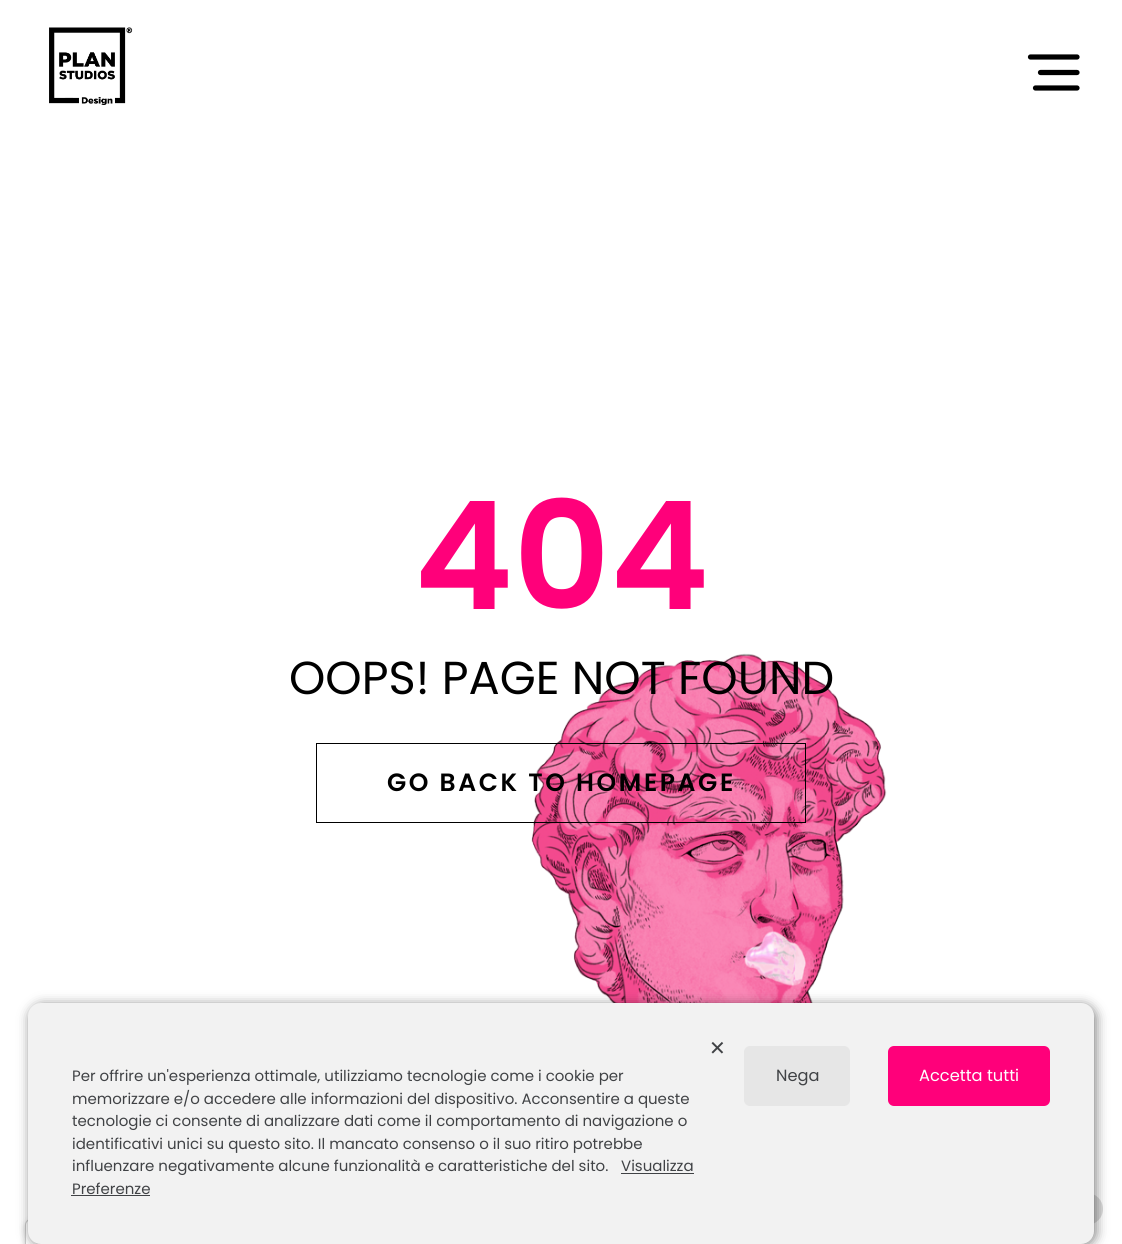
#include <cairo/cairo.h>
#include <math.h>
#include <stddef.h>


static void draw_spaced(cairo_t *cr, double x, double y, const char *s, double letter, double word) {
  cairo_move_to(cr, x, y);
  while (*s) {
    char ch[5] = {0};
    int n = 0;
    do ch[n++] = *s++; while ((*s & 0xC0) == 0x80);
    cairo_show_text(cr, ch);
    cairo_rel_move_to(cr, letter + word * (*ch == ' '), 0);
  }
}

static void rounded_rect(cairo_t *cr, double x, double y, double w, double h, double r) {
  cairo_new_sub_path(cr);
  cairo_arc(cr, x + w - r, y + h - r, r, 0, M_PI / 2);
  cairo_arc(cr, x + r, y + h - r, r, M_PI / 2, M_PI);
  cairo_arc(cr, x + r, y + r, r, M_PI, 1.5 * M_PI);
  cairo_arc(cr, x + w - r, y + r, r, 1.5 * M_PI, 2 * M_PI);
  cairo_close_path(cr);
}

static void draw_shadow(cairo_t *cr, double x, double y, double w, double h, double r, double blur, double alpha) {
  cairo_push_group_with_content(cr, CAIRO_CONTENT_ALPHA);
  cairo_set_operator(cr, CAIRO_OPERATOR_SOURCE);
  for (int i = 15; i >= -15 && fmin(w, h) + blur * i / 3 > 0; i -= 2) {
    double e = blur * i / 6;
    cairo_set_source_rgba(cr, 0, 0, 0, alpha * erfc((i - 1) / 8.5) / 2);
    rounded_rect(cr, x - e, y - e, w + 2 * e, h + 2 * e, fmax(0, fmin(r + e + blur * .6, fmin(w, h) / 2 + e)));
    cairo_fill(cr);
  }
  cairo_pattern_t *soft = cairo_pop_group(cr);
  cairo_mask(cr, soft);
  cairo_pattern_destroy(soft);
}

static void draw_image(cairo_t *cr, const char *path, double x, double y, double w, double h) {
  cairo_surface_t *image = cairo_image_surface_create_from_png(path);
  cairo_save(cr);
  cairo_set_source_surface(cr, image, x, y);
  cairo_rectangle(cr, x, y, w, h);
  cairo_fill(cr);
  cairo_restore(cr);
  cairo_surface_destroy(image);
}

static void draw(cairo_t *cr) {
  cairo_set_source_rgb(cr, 1, 1, 1);
  cairo_paint(cr);
  draw_image(cr, "images/1.png", 49, 27, 84, 78);
  cairo_new_path(cr);
  cairo_move_to(cr, 1030.5, 57);
  cairo_line_to(cr, 1077, 57);
  cairo_move_to(cr, 1040.5, 72.5);
  cairo_line_to(cr, 1077, 72.5);
  cairo_move_to(cr, 1035.5, 88);
  cairo_line_to(cr, 1077, 88);
  cairo_set_source_rgb(cr, 0, 0, 0);
  cairo_set_line_width(cr, 5.2);
  cairo_set_line_cap(cr, CAIRO_LINE_CAP_ROUND);
  cairo_set_line_join(cr, CAIRO_LINE_JOIN_ROUND);
  cairo_stroke(cr);
  draw_image(cr, "images/2.png", 531, 653, 551, 591);
  cairo_rectangle(cr, 316.5, 743.5, 489, 79);
  cairo_set_line_width(cr, 1);
  cairo_set_line_cap(cr, CAIRO_LINE_CAP_BUTT);
  cairo_set_line_join(cr, CAIRO_LINE_JOIN_MITER);
  cairo_stroke(cr);
  cairo_set_source_rgb(cr, 0, 0, 0);
  draw_shadow(cr, 25, 1221, 206, 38, 6, 3, 0.2);
  cairo_set_source_rgb(cr, 1, 1, 1);
  rounded_rect(cr, 25.5, 1219.5, 205, 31, 5.5);
  cairo_fill_preserve(cr);
  cairo_set_source_rgb(cr, 204 / 255.0, 204 / 255.0, 204 / 255.0);
  cairo_stroke(cr);
  cairo_set_source_rgb(cr, 254 / 255.0, 254 / 255.0, 254 / 255.0);
  draw_shadow(cr, 1046, 1198, 52, 22, 11, 4.5, 1);
  cairo_set_source_rgb(cr, 220 / 255.0, 220 / 255.0, 220 / 255.0);
  rounded_rect(cr, 1041, 1193, 62, 32, 16);
  cairo_fill(cr);
  cairo_set_source_rgb(cr, 0, 0, 0);
  draw_shadow(cr, 30, 1005, 1066, 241, 13, 6, 0.5);
  cairo_set_source_rgb(cr, 242 / 255.0, 242 / 255.0, 242 / 255.0);
  rounded_rect(cr, 28, 1003, 1066, 241, 13);
  cairo_fill(cr);
  cairo_set_source_rgb(cr, 64 / 255.0, 66 / 255.0, 69 / 255.0);
  cairo_rectangle(cr, 621, 1173, 73, 1);
  cairo_fill(cr);
  cairo_rectangle(cr, 71, 1195, 79, 1);
  cairo_fill(cr);
  cairo_set_source_rgb(cr, 230 / 255.0, 230 / 255.0, 230 / 255.0);
  rounded_rect(cr, 744, 1046, 106, 60, 6);
  cairo_fill(cr);
  cairo_set_source_rgb(cr, 1, 0, 122 / 255.0);
  rounded_rect(cr, 888, 1046, 162, 60, 6);
  cairo_fill(cr);
  cairo_select_font_face(cr, "Poppins SemiBold", CAIRO_FONT_SLANT_NORMAL, CAIRO_FONT_WEIGHT_NORMAL);
  cairo_set_font_size(cr, 150);
  cairo_move_to(cr, 414, 609);
  cairo_show_text(cr, "404");
  cairo_select_font_face(cr, "Poppins", CAIRO_FONT_SLANT_NORMAL, CAIRO_FONT_WEIGHT_NORMAL);
  cairo_set_font_size(cr, 46.25);
  cairo_set_source_rgb(cr, 0, 0, 0);
  cairo_move_to(cr, 289, 694);
  cairo_show_text(cr, "OOPS! PAGE NOT FOUND");
  cairo_select_font_face(cr, "Poppins SemiBold", CAIRO_FONT_SLANT_NORMAL, CAIRO_FONT_WEIGHT_NORMAL);
  cairo_set_font_size(cr, 25);
  draw_spaced(cr, 387, 791, "GO BACK TO HOMEPAGE", 2.6, 0);
  cairo_select_font_face(cr, "DejaVu Sans", CAIRO_FONT_SLANT_NORMAL, CAIRO_FONT_WEIGHT_NORMAL);
  cairo_set_font_size(cr, 20);
  cairo_set_source_rgb(cr, 64 / 255.0, 66 / 255.0, 69 / 255.0);
  cairo_move_to(cr, 709, 1055);
  cairo_show_text(cr, "✕");
  cairo_select_font_face(cr, "Poppins", CAIRO_FONT_SLANT_NORMAL, CAIRO_FONT_WEIGHT_NORMAL);
  cairo_set_font_size(cr, 15);
  cairo_move_to(cr, 72, 1081);
  cairo_show_text(cr, "Per offrire un'esperienza ottimale, utilizziamo tecnologie come i cookie per");
  cairo_move_to(cr, 72, 1104);
  cairo_show_text(cr, "memorizzare e/o accedere alle informazioni del dispositivo. Acconsentire a queste");
  cairo_move_to(cr, 72, 1126);
  cairo_show_text(cr, "tecnologie ci consente di analizzare dati come il comportamento di navigazione o");
  cairo_move_to(cr, 72, 1149);
  cairo_show_text(cr, "identificativi unici su questo sito. Il mancato consenso o il suo ritiro potrebbe");
  cairo_move_to(cr, 72, 1171);
  cairo_show_text(cr, "influenzare negativamente alcune funzionalità e caratteristiche del sito.");
  cairo_move_to(cr, 621, 1171);
  cairo_show_text(cr, "Visualizza");
  cairo_move_to(cr, 72, 1194);
  cairo_show_text(cr, "Preferenze");
  cairo_set_font_size(cr, 16.25);
  cairo_move_to(cr, 776, 1081);
  cairo_show_text(cr, "Nega");
  cairo_set_source_rgb(cr, 1, 1, 1);
  cairo_move_to(cr, 919, 1081);
  cairo_show_text(cr, "Accetta tutti");
}

int main(void) {
  cairo_surface_t *surface = cairo_image_surface_create(CAIRO_FORMAT_RGB24, 1122, 1244);
  cairo_t *cr = cairo_create(surface);
  cairo_font_options_t *options = cairo_font_options_create();
  cairo_font_options_set_hint_metrics(options, CAIRO_HINT_METRICS_OFF);
  cairo_font_options_set_hint_style(options, CAIRO_HINT_STYLE_NONE);
  cairo_set_font_options(cr, options);
  cairo_set_miter_limit(cr, 4);
  draw(cr);
  cairo_surface_write_to_png(surface, "out.png");
  cairo_font_options_destroy(options);
  cairo_destroy(cr);
  cairo_surface_destroy(surface);
  return 0;
}
